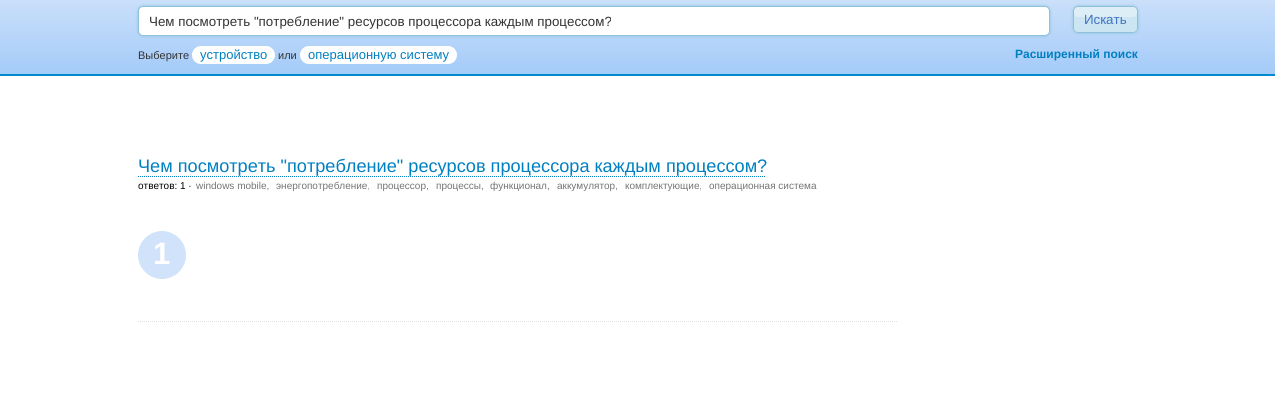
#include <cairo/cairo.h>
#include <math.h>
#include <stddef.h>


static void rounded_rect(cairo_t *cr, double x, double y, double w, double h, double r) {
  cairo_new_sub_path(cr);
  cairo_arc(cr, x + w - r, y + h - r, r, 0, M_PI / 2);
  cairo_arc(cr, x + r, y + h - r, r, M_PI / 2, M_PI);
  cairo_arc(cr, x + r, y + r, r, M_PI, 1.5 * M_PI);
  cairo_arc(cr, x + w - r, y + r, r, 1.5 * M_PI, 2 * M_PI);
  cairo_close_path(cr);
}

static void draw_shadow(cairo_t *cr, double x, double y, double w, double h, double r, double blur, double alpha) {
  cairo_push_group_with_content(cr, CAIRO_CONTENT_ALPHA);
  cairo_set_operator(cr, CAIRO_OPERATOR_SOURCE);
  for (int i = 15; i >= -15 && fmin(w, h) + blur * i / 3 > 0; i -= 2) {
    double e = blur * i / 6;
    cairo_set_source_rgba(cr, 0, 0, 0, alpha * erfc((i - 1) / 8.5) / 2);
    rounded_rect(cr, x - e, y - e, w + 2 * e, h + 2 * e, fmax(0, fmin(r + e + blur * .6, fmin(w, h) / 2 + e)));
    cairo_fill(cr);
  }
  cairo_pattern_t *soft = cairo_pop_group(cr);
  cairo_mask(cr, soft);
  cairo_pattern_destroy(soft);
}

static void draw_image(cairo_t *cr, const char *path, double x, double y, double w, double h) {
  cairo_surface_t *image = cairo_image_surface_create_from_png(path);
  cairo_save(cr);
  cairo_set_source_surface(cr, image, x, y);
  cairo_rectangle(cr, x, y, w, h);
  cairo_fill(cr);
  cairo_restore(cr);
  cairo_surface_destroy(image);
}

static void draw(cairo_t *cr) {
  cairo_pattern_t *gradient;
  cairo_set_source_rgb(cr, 1, 1, 1);
  cairo_paint(cr);
  gradient = cairo_pattern_create_linear(638, -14, 638, 74);
  cairo_pattern_add_color_stop_rgba(gradient, 0, 209 / 255.0, 227 / 255.0, 250 / 255.0, 1);
  cairo_pattern_add_color_stop_rgba(gradient, 1, 164 / 255.0, 203 / 255.0, 249 / 255.0, 1);
  cairo_set_source(cr, gradient);
  cairo_pattern_destroy(gradient);
  cairo_rectangle(cr, 0, 0, 1275, 74);
  cairo_fill(cr);
  cairo_set_source_rgb(cr, 0, 137 / 255.0, 205 / 255.0);
  cairo_rectangle(cr, 0, 74, 1275, 2);
  cairo_fill(cr);
  cairo_set_source_rgb(cr, 142 / 255.0, 193 / 255.0, 218 / 255.0);
  draw_shadow(cr, 138, 6, 912, 30, 5, 1.5, 1);
  cairo_set_source_rgb(cr, 1, 1, 1);
  rounded_rect(cr, 138.5, 6.5, 911, 29, 4.5);
  cairo_fill_preserve(cr);
  cairo_set_source_rgb(cr, 142 / 255.0, 193 / 255.0, 218 / 255.0);
  cairo_set_line_width(cr, 1);
  cairo_stroke(cr);
  cairo_set_source_rgb(cr, 142 / 255.0, 193 / 255.0, 218 / 255.0);
  draw_shadow(cr, 1073, 6, 65, 27, 5, 1.5, 1);
  cairo_set_source_rgb(cr, 221 / 255.0, 238 / 255.0, 246 / 255.0);
  rounded_rect(cr, 1073, 6, 65, 27, 5);
  cairo_fill(cr);
  cairo_set_source_rgb(cr, 203 / 255.0, 230 / 255.0, 242 / 255.0);
  cairo_new_path(cr);
  cairo_move_to(cr, 1074, 13);
  cairo_line_to(cr, 1074, 28);
  cairo_curve_to(cr, 1074, 30, 1076, 32, 1078, 32);
  cairo_line_to(cr, 1133, 32);
  cairo_curve_to(cr, 1135, 32, 1137, 30, 1137, 28);
  cairo_line_to(cr, 1137, 13);
  cairo_curve_to(cr, 1137, 15, 1135, 17, 1133, 17);
  cairo_line_to(cr, 1078, 17);
  cairo_curve_to(cr, 1076, 17, 1074, 15, 1074, 13);
  cairo_close_path(cr);
  cairo_fill(cr);
  rounded_rect(cr, 1073.5, 6.5, 64, 26, 4.5);
  cairo_set_source_rgb(cr, 142 / 255.0, 193 / 255.0, 218 / 255.0);
  cairo_stroke(cr);
  cairo_set_source_rgb(cr, 1, 1, 1);
  rounded_rect(cr, 192, 46, 83, 18, 9);
  cairo_fill(cr);
  rounded_rect(cr, 300, 46, 157, 18, 9);
  cairo_fill(cr);
  cairo_new_path(cr);
  cairo_move_to(cr, 138, 321.5);
  cairo_line_to(cr, 898, 321.5);
  cairo_set_source_rgb(cr, 225 / 255.0, 225 / 255.0, 225 / 255.0);
  cairo_set_dash(cr, (double[]){1, 1}, 2, 0);
  cairo_stroke(cr);
  cairo_new_path(cr);
  cairo_move_to(cr, 138, 176.5);
  cairo_line_to(cr, 766, 176.5);
  cairo_set_source_rgb(cr, 0, 128 / 255.0, 193 / 255.0);
  cairo_stroke(cr);
  draw_image(cr, "images/1.png", 138, 231, 48, 48);
  cairo_select_font_face(cr, "Liberation Sans", CAIRO_FONT_SLANT_NORMAL, CAIRO_FONT_WEIGHT_NORMAL);
  cairo_set_font_size(cr, 13.35);
  cairo_set_source_rgb(cr, 51 / 255.0, 51 / 255.0, 51 / 255.0);
  cairo_move_to(cr, 149, 26);
  cairo_show_text(cr, "Чем посмотреть \"потребление\" ресурсов процессора каждым процессом?");
  cairo_set_source_rgb(cr, 67 / 255.0, 115 / 255.0, 195 / 255.0);
  cairo_move_to(cr, 1084, 24);
  cairo_show_text(cr, "Искать");
  cairo_set_font_size(cr, 11);
  cairo_set_source_rgb(cr, 51 / 255.0, 51 / 255.0, 51 / 255.0);
  cairo_move_to(cr, 138, 59);
  cairo_show_text(cr, "Выберите");
  cairo_set_font_size(cr, 13);
  cairo_set_source_rgb(cr, 0, 128 / 255.0, 193 / 255.0);
  cairo_move_to(cr, 200, 59);
  cairo_show_text(cr, "устройство");
  cairo_set_font_size(cr, 11);
  cairo_set_source_rgb(cr, 51 / 255.0, 51 / 255.0, 51 / 255.0);
  cairo_move_to(cr, 278, 59);
  cairo_show_text(cr, "или");
  cairo_set_font_size(cr, 13);
  cairo_set_source_rgb(cr, 0, 128 / 255.0, 193 / 255.0);
  cairo_move_to(cr, 308, 59);
  cairo_show_text(cr, "операционную систему");
  cairo_select_font_face(cr, "Liberation Sans", CAIRO_FONT_SLANT_NORMAL, CAIRO_FONT_WEIGHT_BOLD);
  cairo_set_font_size(cr, 12);
  cairo_move_to(cr, 1015, 58);
  cairo_show_text(cr, "Расширенный поиск");
  cairo_select_font_face(cr, "Liberation Sans", CAIRO_FONT_SLANT_NORMAL, CAIRO_FONT_WEIGHT_NORMAL);
  cairo_set_font_size(cr, 18.15);
  cairo_move_to(cr, 138, 172);
  cairo_show_text(cr, "Чем посмотреть \"потребление\" ресурсов процессора каждым процессом?");
  cairo_set_font_size(cr, 10);
  cairo_set_source_rgb(cr, 0, 0, 0);
  cairo_move_to(cr, 138, 189);
  cairo_show_text(cr, "ответов: 1 ·");
  cairo_set_source_rgb(cr, 116 / 255.0, 116 / 255.0, 116 / 255.0);
  cairo_move_to(cr, 196, 189);
  cairo_show_text(cr, "windows mobile,");
  cairo_move_to(cr, 276, 189);
  cairo_show_text(cr, "энергопотребление,");
  cairo_move_to(cr, 377, 189);
  cairo_show_text(cr, "процессор,");
  cairo_move_to(cr, 436, 189);
  cairo_show_text(cr, "процессы,");
  cairo_move_to(cr, 490, 189);
  cairo_show_text(cr, "функционал,");
  cairo_move_to(cr, 557, 189);
  cairo_show_text(cr, "аккумулятор,");
  cairo_move_to(cr, 625, 189);
  cairo_show_text(cr, "комплектующие,");
  cairo_move_to(cr, 709, 189);
  cairo_show_text(cr, "операционная система");
  cairo_select_font_face(cr, "Liberation Sans", CAIRO_FONT_SLANT_NORMAL, CAIRO_FONT_WEIGHT_BOLD);
  cairo_set_font_size(cr, 31);
  cairo_set_source_rgb(cr, 1, 1, 1);
  cairo_move_to(cr, 153, 264);
  cairo_show_text(cr, "1");
}

int main(void) {
  cairo_surface_t *surface = cairo_image_surface_create(CAIRO_FORMAT_RGB24, 1275, 413);
  cairo_t *cr = cairo_create(surface);
  cairo_font_options_t *options = cairo_font_options_create();
  cairo_font_options_set_hint_metrics(options, CAIRO_HINT_METRICS_OFF);
  cairo_font_options_set_hint_style(options, CAIRO_HINT_STYLE_NONE);
  cairo_set_font_options(cr, options);
  cairo_set_miter_limit(cr, 4);
  draw(cr);
  cairo_surface_write_to_png(surface, "out.png");
  cairo_font_options_destroy(options);
  cairo_destroy(cr);
  cairo_surface_destroy(surface);
  return 0;
}
